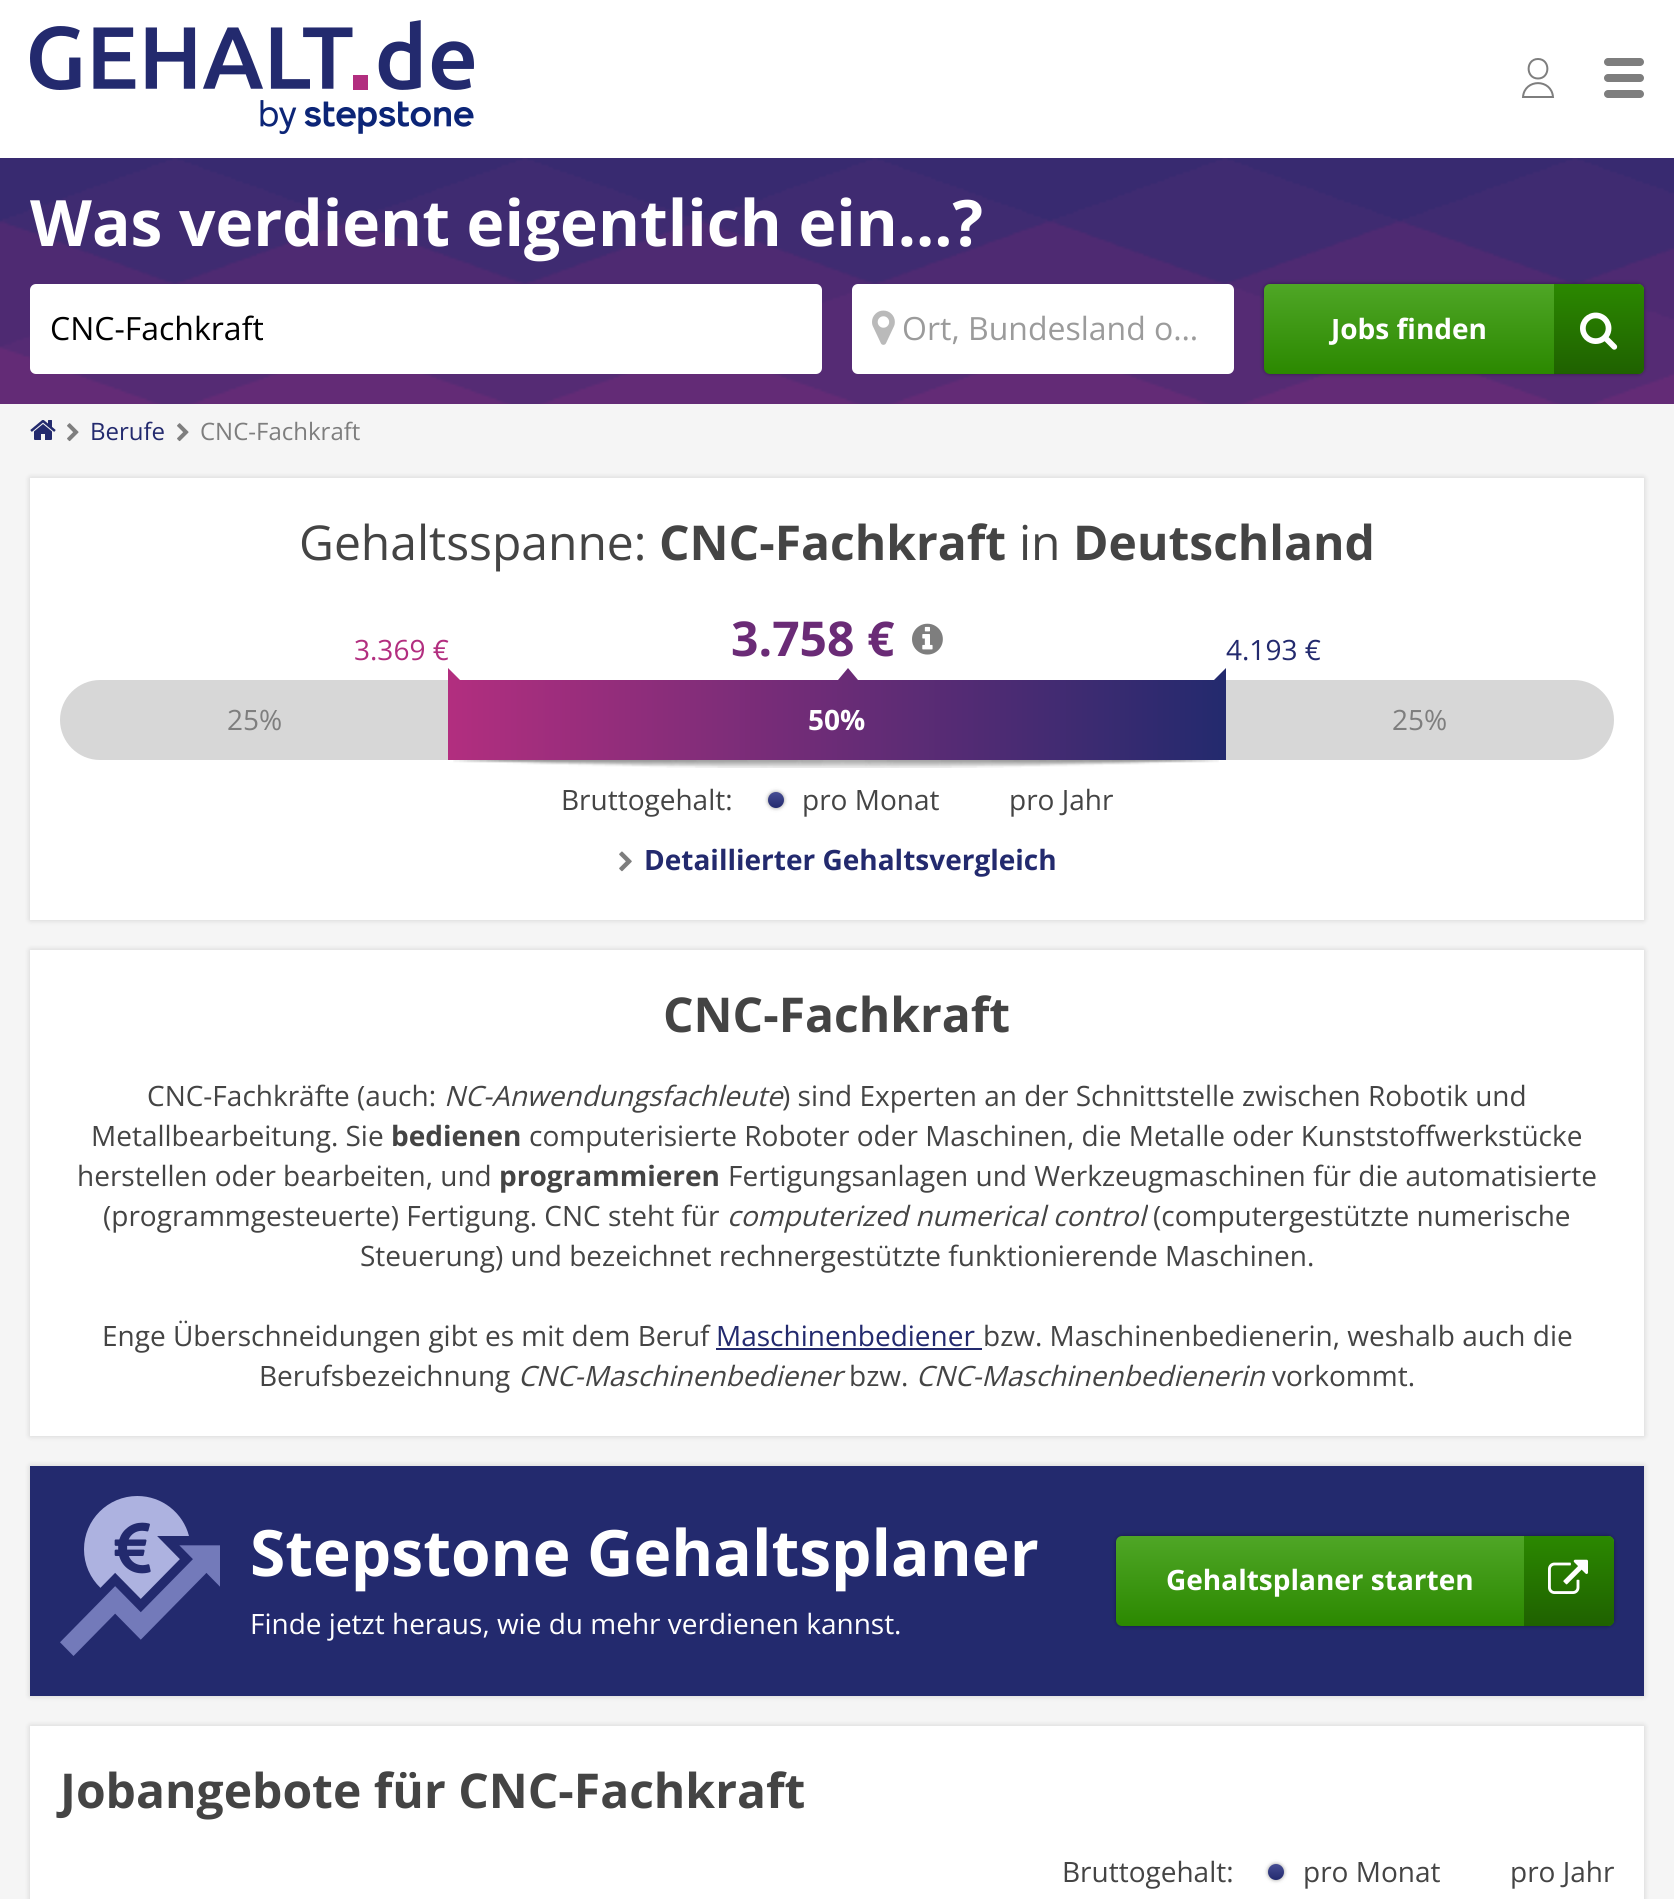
#include <cairo/cairo.h>
#include <math.h>
#include <stddef.h>


static void rounded_rect(cairo_t *cr, double x, double y, double w, double h, double r) {
  cairo_new_sub_path(cr);
  cairo_arc(cr, x + w - r, y + h - r, r, 0, M_PI / 2);
  cairo_arc(cr, x + r, y + h - r, r, M_PI / 2, M_PI);
  cairo_arc(cr, x + r, y + r, r, M_PI, 1.5 * M_PI);
  cairo_arc(cr, x + w - r, y + r, r, 1.5 * M_PI, 2 * M_PI);
  cairo_close_path(cr);
}

static void draw_shadow(cairo_t *cr, double x, double y, double w, double h, double r, double blur, double alpha) {
  cairo_push_group_with_content(cr, CAIRO_CONTENT_ALPHA);
  cairo_set_operator(cr, CAIRO_OPERATOR_SOURCE);
  for (int i = 15; i >= -15 && fmin(w, h) + blur * i / 3 > 0; i -= 2) {
    double e = blur * i / 6;
    cairo_set_source_rgba(cr, 0, 0, 0, alpha * erfc((i - 1) / 8.5) / 2);
    rounded_rect(cr, x - e, y - e, w + 2 * e, h + 2 * e, fmax(0, fmin(r + e + blur * .6, fmin(w, h) / 2 + e)));
    cairo_fill(cr);
  }
  cairo_pattern_t *soft = cairo_pop_group(cr);
  cairo_mask(cr, soft);
  cairo_pattern_destroy(soft);
}

static void draw_image(cairo_t *cr, const char *path, double x, double y, double w, double h) {
  cairo_surface_t *image = cairo_image_surface_create_from_png(path);
  cairo_save(cr);
  cairo_set_source_surface(cr, image, x, y);
  cairo_rectangle(cr, x, y, w, h);
  cairo_fill(cr);
  cairo_restore(cr);
  cairo_surface_destroy(image);
}

static void draw(cairo_t *cr) {
  cairo_pattern_t *gradient;
  cairo_set_source_rgb(cr, 245 / 255.0, 245 / 255.0, 245 / 255.0);
  cairo_paint(cr);
  cairo_set_source_rgb(cr, 1, 1, 1);
  cairo_rectangle(cr, 0, 0, 1674, 158);
  cairo_fill(cr);
  draw_image(cr, "images/1.png", 30, 20, 444, 115);
  cairo_new_path(cr);
  cairo_move_to(cr, 1523, 97);
  cairo_line_to(cr, 1553, 97);
  cairo_curve_to(cr, 1551.5, 78.5, 1524.5, 78.5, 1523, 97);
  cairo_close_path(cr);
  cairo_move_to(cr, 1538, 78.5);
  cairo_curve_to(cr, 1550.5, 78.5, 1550.5, 59, 1538, 59);
  cairo_curve_to(cr, 1525.5, 59, 1525.5, 78.5, 1538, 78.5);
  cairo_close_path(cr);
  cairo_set_source_rgb(cr, 126 / 255.0, 126 / 255.0, 126 / 255.0);
  cairo_stroke(cr);
  draw_image(cr, "images/2.png", 1604, 58, 40, 40);
  draw_image(cr, "images/3.png", 0, 158, 1674, 246);
  cairo_set_source_rgb(cr, 1, 1, 1);
  rounded_rect(cr, 30, 284, 792, 90, 6);
  cairo_fill(cr);
  rounded_rect(cr, 852, 284, 382, 90, 6);
  cairo_fill(cr);
  draw_image(cr, "images/4.png", 872, 310, 23, 35);
  cairo_set_source_rgb(cr, 0, 0, 0);
  draw_shadow(cr, 1264, 284, 380, 90, 6, 2, 0.4);
  gradient = cairo_pattern_create_linear(1454, 284, 1454, 374);
  cairo_pattern_add_color_stop_rgba(gradient, 0, 79 / 255.0, 166 / 255.0, 38 / 255.0, 1);
  cairo_pattern_add_color_stop_rgba(gradient, 1, 43 / 255.0, 136 / 255.0, 0, 1);
  cairo_set_source(cr, gradient);
  cairo_pattern_destroy(gradient);
  rounded_rect(cr, 1264, 284, 380, 90, 6);
  cairo_fill(cr);
  gradient = cairo_pattern_create_linear(1599, 284, 1599, 374);
  cairo_pattern_add_color_stop_rgba(gradient, 0, 43 / 255.0, 136 / 255.0, 0, 1);
  cairo_pattern_add_color_stop_rgba(gradient, 1, 31 / 255.0, 97 / 255.0, 0, 1);
  cairo_set_source(cr, gradient);
  cairo_pattern_destroy(gradient);
  cairo_new_path(cr);
  cairo_move_to(cr, 1554, 284);
  cairo_line_to(cr, 1638, 284);
  cairo_curve_to(cr, 1641.5, 284, 1644, 286.5, 1644, 290);
  cairo_line_to(cr, 1644, 368);
  cairo_curve_to(cr, 1644, 371.5, 1641.5, 374, 1638, 374);
  cairo_line_to(cr, 1554, 374);
  cairo_close_path(cr);
  cairo_fill(cr);
  draw_image(cr, "images/5.png", 1580, 312, 38, 38);
  draw_image(cr, "images/6.png", 30, 420, 26, 20);
  draw_image(cr, "images/7.png", 67, 423, 12, 19);
  draw_image(cr, "images/7.png", 177, 423, 12, 19);
  cairo_set_source_rgb(cr, 0, 0, 0);
  draw_shadow(cr, 30, 478, 1614, 442, 0, 3, 0.15);
  cairo_set_source_rgb(cr, 1, 1, 1);
  cairo_rectangle(cr, 30, 478, 1614, 442);
  cairo_fill(cr);
  draw_image(cr, "images/8.png", 912, 623, 31, 32);
  cairo_set_source_rgb(cr, 215 / 255.0, 215 / 255.0, 215 / 255.0);
  cairo_new_path(cr);
  cairo_move_to(cr, 100, 680);
  cairo_line_to(cr, 448, 680);
  cairo_line_to(cr, 448, 760);
  cairo_line_to(cr, 100, 760);
  cairo_curve_to(cr, 78, 760, 60, 742, 60, 720);
  cairo_curve_to(cr, 60, 698, 78, 680, 100, 680);
  cairo_close_path(cr);
  cairo_fill(cr);
  cairo_set_source_rgb(cr, 178 / 255.0, 46 / 255.0, 127 / 255.0);
  cairo_new_path(cr);
  cairo_move_to(cr, 448, 680);
  cairo_line_to(cr, 448, 668);
  cairo_line_to(cr, 460, 680);
  cairo_close_path(cr);
  cairo_fill(cr);
  cairo_set_source_rgb(cr, 106 / 255.0, 43 / 255.0, 118 / 255.0);
  cairo_new_path(cr);
  cairo_move_to(cr, 858, 680);
  cairo_line_to(cr, 838, 680);
  cairo_line_to(cr, 848, 668);
  cairo_close_path(cr);
  cairo_fill(cr);
  cairo_set_source_rgb(cr, 35 / 255.0, 42 / 255.0, 110 / 255.0);
  cairo_new_path(cr);
  cairo_move_to(cr, 1226, 680);
  cairo_line_to(cr, 1214, 680);
  cairo_line_to(cr, 1226, 668);
  cairo_close_path(cr);
  cairo_fill(cr);
  gradient = cairo_pattern_create_linear(448, 720, 1226, 720);
  cairo_pattern_add_color_stop_rgba(gradient, 0, 178 / 255.0, 46 / 255.0, 127 / 255.0, 1);
  cairo_pattern_add_color_stop_rgba(gradient, 1, 35 / 255.0, 42 / 255.0, 110 / 255.0, 1);
  cairo_set_source(cr, gradient);
  cairo_pattern_destroy(gradient);
  cairo_rectangle(cr, 448, 680, 778, 80);
  cairo_fill(cr);
  draw_image(cr, "images/9.png", 453, 760, 766, 8);
  cairo_set_source_rgb(cr, 215 / 255.0, 215 / 255.0, 215 / 255.0);
  cairo_new_path(cr);
  cairo_move_to(cr, 1226, 680);
  cairo_line_to(cr, 1574, 680);
  cairo_curve_to(cr, 1596, 680, 1614, 698, 1614, 720);
  cairo_curve_to(cr, 1614, 742, 1596, 760, 1574, 760);
  cairo_line_to(cr, 1226, 760);
  cairo_close_path(cr);
  cairo_fill(cr);
  cairo_set_source_rgb(cr, 0, 0, 0);
  draw_shadow(cr, 768, 792, 16, 16, 8, 2, 0.4);
  gradient = cairo_pattern_create_linear(776, 792, 776, 808);
  cairo_pattern_add_color_stop_rgba(gradient, 0, 70 / 255.0, 77 / 255.0, 148 / 255.0, 1);
  cairo_pattern_add_color_stop_rgba(gradient, 1, 35 / 255.0, 42 / 255.0, 110 / 255.0, 1);
  cairo_set_source(cr, gradient);
  cairo_pattern_destroy(gradient);
  cairo_arc(cr, 776, 800, 8, 0, 2 * M_PI);
  cairo_fill(cr);
  draw_image(cr, "images/10.png", 619, 851, 13, 21);
  cairo_set_source_rgb(cr, 0, 0, 0);
  draw_shadow(cr, 30, 950, 1614, 486, 0, 3, 0.15);
  cairo_set_source_rgb(cr, 1, 1, 1);
  cairo_rectangle(cr, 30, 950, 1614, 486);
  cairo_fill(cr);
  cairo_set_source_rgb(cr, 35 / 255.0, 42 / 255.0, 110 / 255.0);
  cairo_rectangle(cr, 716, 1348, 266, 2);
  cairo_fill(cr);
  cairo_set_source_rgb(cr, 0, 0, 0);
  draw_shadow(cr, 30, 1466, 1614, 230, 0, 3, 0.15);
  cairo_set_source_rgb(cr, 35 / 255.0, 42 / 255.0, 110 / 255.0);
  cairo_rectangle(cr, 30, 1466, 1614, 230);
  cairo_fill(cr);
  draw_image(cr, "images/11.png", 60, 1496, 160, 160);
  cairo_set_source_rgb(cr, 0, 0, 0);
  draw_shadow(cr, 1116, 1536, 498, 90, 6, 2, 0.4);
  gradient = cairo_pattern_create_linear(1365, 1536, 1365, 1626);
  cairo_pattern_add_color_stop_rgba(gradient, 0, 79 / 255.0, 166 / 255.0, 38 / 255.0, 1);
  cairo_pattern_add_color_stop_rgba(gradient, 1, 43 / 255.0, 136 / 255.0, 0, 1);
  cairo_set_source(cr, gradient);
  cairo_pattern_destroy(gradient);
  rounded_rect(cr, 1116, 1536, 498, 90, 6);
  cairo_fill(cr);
  gradient = cairo_pattern_create_linear(1569, 1536, 1569, 1626);
  cairo_pattern_add_color_stop_rgba(gradient, 0, 43 / 255.0, 136 / 255.0, 0, 1);
  cairo_pattern_add_color_stop_rgba(gradient, 1, 31 / 255.0, 97 / 255.0, 0, 1);
  cairo_set_source(cr, gradient);
  cairo_pattern_destroy(gradient);
  cairo_new_path(cr);
  cairo_move_to(cr, 1524, 1536);
  cairo_line_to(cr, 1608, 1536);
  cairo_curve_to(cr, 1611.5, 1536, 1614, 1538.5, 1614, 1542);
  cairo_line_to(cr, 1614, 1620);
  cairo_curve_to(cr, 1614, 1623.5, 1611.5, 1626, 1608, 1626);
  cairo_line_to(cr, 1524, 1626);
  cairo_close_path(cr);
  cairo_fill(cr);
  draw_image(cr, "images/12.png", 1548, 1559, 40, 35);
  cairo_set_source_rgb(cr, 0, 0, 0);
  draw_shadow(cr, 30, 1726, 1614, 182, 0, 3, 0.15);
  cairo_set_source_rgb(cr, 1, 1, 1);
  cairo_rectangle(cr, 30, 1726, 1614, 173);
  cairo_fill(cr);
  cairo_set_source_rgb(cr, 0, 0, 0);
  draw_shadow(cr, 1268, 1864, 16, 16, 8, 2, 0.4);
  gradient = cairo_pattern_create_linear(1276, 1864, 1276, 1880);
  cairo_pattern_add_color_stop_rgba(gradient, 0, 70 / 255.0, 77 / 255.0, 148 / 255.0, 1);
  cairo_pattern_add_color_stop_rgba(gradient, 1, 35 / 255.0, 42 / 255.0, 110 / 255.0, 1);
  cairo_set_source(cr, gradient);
  cairo_pattern_destroy(gradient);
  cairo_arc(cr, 1276, 1872, 8, 0, 2 * M_PI);
  cairo_fill(cr);
  cairo_select_font_face(cr, "Open Sans", CAIRO_FONT_SLANT_NORMAL, CAIRO_FONT_WEIGHT_BOLD);
  cairo_set_font_size(cr, 64);
  cairo_set_source_rgb(cr, 1, 1, 1);
  cairo_move_to(cr, 30, 246);
  cairo_show_text(cr, "Was verdient eigentlich ein...?");
  cairo_select_font_face(cr, "Open Sans", CAIRO_FONT_SLANT_NORMAL, CAIRO_FONT_WEIGHT_NORMAL);
  cairo_set_font_size(cr, 32);
  cairo_set_source_rgb(cr, 0, 0, 0);
  cairo_move_to(cr, 50, 340);
  cairo_show_text(cr, "CNC-Fachkraft");
  cairo_set_source_rgb(cr, 155 / 255.0, 155 / 255.0, 155 / 255.0);
  cairo_move_to(cr, 902, 340);
  cairo_show_text(cr, "Ort, Bundesland o…");
  cairo_select_font_face(cr, "Open Sans", CAIRO_FONT_SLANT_NORMAL, CAIRO_FONT_WEIGHT_BOLD);
  cairo_set_font_size(cr, 28);
  cairo_set_source_rgb(cr, 1, 1, 1);
  cairo_move_to(cr, 1331, 339);
  cairo_show_text(cr, "Jobs finden");
  cairo_select_font_face(cr, "Open Sans", CAIRO_FONT_SLANT_NORMAL, CAIRO_FONT_WEIGHT_NORMAL);
  cairo_set_font_size(cr, 24);
  cairo_set_source_rgb(cr, 35 / 255.0, 42 / 255.0, 110 / 255.0);
  cairo_move_to(cr, 90, 440);
  cairo_show_text(cr, "Berufe");
  cairo_set_source_rgb(cr, 126 / 255.0, 126 / 255.0, 126 / 255.0);
  cairo_move_to(cr, 200, 440);
  cairo_show_text(cr, "CNC-Fachkraft");
  cairo_set_font_size(cr, 48);
  cairo_set_source_rgb(cr, 68 / 255.0, 68 / 255.0, 68 / 255.0);
  cairo_move_to(cr, 299, 560);
  cairo_show_text(cr, "Gehaltsspanne:");
  cairo_select_font_face(cr, "Open Sans", CAIRO_FONT_SLANT_NORMAL, CAIRO_FONT_WEIGHT_BOLD);
  cairo_move_to(cr, 659, 560);
  cairo_show_text(cr, "CNC-Fachkraft");
  cairo_select_font_face(cr, "Open Sans", CAIRO_FONT_SLANT_NORMAL, CAIRO_FONT_WEIGHT_NORMAL);
  cairo_move_to(cr, 1019, 560);
  cairo_show_text(cr, "in");
  cairo_select_font_face(cr, "Open Sans", CAIRO_FONT_SLANT_NORMAL, CAIRO_FONT_WEIGHT_BOLD);
  cairo_move_to(cr, 1073, 560);
  cairo_show_text(cr, "Deutschland");
  cairo_select_font_face(cr, "Open Sans", CAIRO_FONT_SLANT_NORMAL, CAIRO_FONT_WEIGHT_NORMAL);
  cairo_set_font_size(cr, 28);
  cairo_set_source_rgb(cr, 178 / 255.0, 46 / 255.0, 127 / 255.0);
  cairo_move_to(cr, 354, 660);
  cairo_show_text(cr, "3.369 €");
  cairo_select_font_face(cr, "Open Sans", CAIRO_FONT_SLANT_NORMAL, CAIRO_FONT_WEIGHT_BOLD);
  cairo_set_font_size(cr, 48);
  cairo_set_source_rgb(cr, 106 / 255.0, 43 / 255.0, 118 / 255.0);
  cairo_move_to(cr, 731, 656);
  cairo_show_text(cr, "3.758 €");
  cairo_select_font_face(cr, "Open Sans", CAIRO_FONT_SLANT_NORMAL, CAIRO_FONT_WEIGHT_NORMAL);
  cairo_set_font_size(cr, 28);
  cairo_set_source_rgb(cr, 35 / 255.0, 42 / 255.0, 110 / 255.0);
  cairo_move_to(cr, 1226, 660);
  cairo_show_text(cr, "4.193 €");
  cairo_set_source_rgb(cr, 126 / 255.0, 126 / 255.0, 126 / 255.0);
  cairo_move_to(cr, 227, 730);
  cairo_show_text(cr, "25%");
  cairo_select_font_face(cr, "Open Sans", CAIRO_FONT_SLANT_NORMAL, CAIRO_FONT_WEIGHT_BOLD);
  cairo_set_source_rgb(cr, 1, 1, 1);
  cairo_move_to(cr, 808, 730);
  cairo_show_text(cr, "50%");
  cairo_select_font_face(cr, "Open Sans", CAIRO_FONT_SLANT_NORMAL, CAIRO_FONT_WEIGHT_NORMAL);
  cairo_set_source_rgb(cr, 126 / 255.0, 126 / 255.0, 126 / 255.0);
  cairo_move_to(cr, 1392, 730);
  cairo_show_text(cr, "25%");
  cairo_set_source_rgb(cr, 68 / 255.0, 68 / 255.0, 68 / 255.0);
  cairo_move_to(cr, 561, 810);
  cairo_show_text(cr, "Bruttogehalt:");
  cairo_move_to(cr, 802, 810);
  cairo_show_text(cr, "pro Monat");
  cairo_move_to(cr, 1009, 810);
  cairo_show_text(cr, "pro Jahr");
  cairo_select_font_face(cr, "Open Sans", CAIRO_FONT_SLANT_NORMAL, CAIRO_FONT_WEIGHT_BOLD);
  cairo_set_source_rgb(cr, 35 / 255.0, 42 / 255.0, 110 / 255.0);
  cairo_move_to(cr, 644, 870);
  cairo_show_text(cr, "Detaillierter Gehaltsvergleich");
  cairo_set_font_size(cr, 48);
  cairo_set_source_rgb(cr, 68 / 255.0, 68 / 255.0, 68 / 255.0);
  cairo_move_to(cr, 663, 1032);
  cairo_show_text(cr, "CNC-Fachkraft");
  cairo_select_font_face(cr, "Open Sans", CAIRO_FONT_SLANT_NORMAL, CAIRO_FONT_WEIGHT_NORMAL);
  cairo_set_font_size(cr, 28);
  cairo_move_to(cr, 147, 1106);
  cairo_show_text(cr, "CNC-Fachkräfte (auch:");
  cairo_select_font_face(cr, "Open Sans", CAIRO_FONT_SLANT_ITALIC, CAIRO_FONT_WEIGHT_NORMAL);
  cairo_move_to(cr, 444, 1106);
  cairo_show_text(cr, "NC-Anwendungsfachleute");
  cairo_select_font_face(cr, "Open Sans", CAIRO_FONT_SLANT_NORMAL, CAIRO_FONT_WEIGHT_NORMAL);
  cairo_move_to(cr, 782, 1106);
  cairo_show_text(cr, ") sind Experten an der Schnittstelle zwischen Robotik und");
  cairo_move_to(cr, 91, 1146);
  cairo_show_text(cr, "Metallbearbeitung. Sie");
  cairo_select_font_face(cr, "Open Sans", CAIRO_FONT_SLANT_NORMAL, CAIRO_FONT_WEIGHT_BOLD);
  cairo_move_to(cr, 391, 1146);
  cairo_show_text(cr, "bedienen");
  cairo_select_font_face(cr, "Open Sans", CAIRO_FONT_SLANT_NORMAL, CAIRO_FONT_WEIGHT_NORMAL);
  cairo_move_to(cr, 529, 1146);
  cairo_show_text(cr, "computerisierte Roboter oder Maschinen, die Metalle oder Kunststoffwerkstücke");
  cairo_move_to(cr, 77, 1186);
  cairo_show_text(cr, "herstellen oder bearbeiten, und");
  cairo_select_font_face(cr, "Open Sans", CAIRO_FONT_SLANT_NORMAL, CAIRO_FONT_WEIGHT_BOLD);
  cairo_move_to(cr, 499, 1186);
  cairo_show_text(cr, "programmieren");
  cairo_select_font_face(cr, "Open Sans", CAIRO_FONT_SLANT_NORMAL, CAIRO_FONT_WEIGHT_NORMAL);
  cairo_move_to(cr, 728, 1186);
  cairo_show_text(cr, "Fertigungsanlagen und Werkzeugmaschinen für die automatisierte");
  cairo_move_to(cr, 103, 1226);
  cairo_show_text(cr, "(programmgesteuerte) Fertigung. CNC steht für");
  cairo_select_font_face(cr, "Open Sans", CAIRO_FONT_SLANT_ITALIC, CAIRO_FONT_WEIGHT_NORMAL);
  cairo_move_to(cr, 727, 1226);
  cairo_show_text(cr, "computerized numerical control");
  cairo_select_font_face(cr, "Open Sans", CAIRO_FONT_SLANT_NORMAL, CAIRO_FONT_WEIGHT_NORMAL);
  cairo_move_to(cr, 1153, 1226);
  cairo_show_text(cr, "(computergestützte numerische");
  cairo_move_to(cr, 360, 1266);
  cairo_show_text(cr, "Steuerung) und bezeichnet rechnergestützte funktionierende Maschinen.");
  cairo_move_to(cr, 102, 1346);
  cairo_show_text(cr, "Enge Überschneidungen gibt es mit dem Beruf");
  cairo_set_source_rgb(cr, 35 / 255.0, 42 / 255.0, 110 / 255.0);
  cairo_move_to(cr, 716, 1346);
  cairo_show_text(cr, "Maschinenbediener");
  cairo_set_source_rgb(cr, 68 / 255.0, 68 / 255.0, 68 / 255.0);
  cairo_move_to(cr, 983, 1346);
  cairo_show_text(cr, "bzw. Maschinenbedienerin, weshalb auch die");
  cairo_move_to(cr, 259, 1386);
  cairo_show_text(cr, "Berufsbezeichnung");
  cairo_select_font_face(cr, "Open Sans", CAIRO_FONT_SLANT_ITALIC, CAIRO_FONT_WEIGHT_NORMAL);
  cairo_move_to(cr, 518, 1386);
  cairo_show_text(cr, "CNC-Maschinenbediener");
  cairo_select_font_face(cr, "Open Sans", CAIRO_FONT_SLANT_NORMAL, CAIRO_FONT_WEIGHT_NORMAL);
  cairo_move_to(cr, 849, 1386);
  cairo_show_text(cr, "bzw.");
  cairo_select_font_face(cr, "Open Sans", CAIRO_FONT_SLANT_ITALIC, CAIRO_FONT_WEIGHT_NORMAL);
  cairo_move_to(cr, 916, 1386);
  cairo_show_text(cr, "CNC-Maschinenbedienerin");
  cairo_select_font_face(cr, "Open Sans", CAIRO_FONT_SLANT_NORMAL, CAIRO_FONT_WEIGHT_NORMAL);
  cairo_move_to(cr, 1272, 1386);
  cairo_show_text(cr, "vorkommt.");
  cairo_select_font_face(cr, "Open Sans", CAIRO_FONT_SLANT_NORMAL, CAIRO_FONT_WEIGHT_BOLD);
  cairo_set_font_size(cr, 64);
  cairo_set_source_rgb(cr, 1, 1, 1);
  cairo_move_to(cr, 250, 1576);
  cairo_show_text(cr, "Stepstone Gehaltsplaner");
  cairo_select_font_face(cr, "Open Sans", CAIRO_FONT_SLANT_NORMAL, CAIRO_FONT_WEIGHT_NORMAL);
  cairo_set_font_size(cr, 28);
  cairo_move_to(cr, 250, 1634);
  cairo_show_text(cr, "Finde jetzt heraus, wie du mehr verdienen kannst.");
  cairo_select_font_face(cr, "Open Sans", CAIRO_FONT_SLANT_NORMAL, CAIRO_FONT_WEIGHT_BOLD);
  cairo_move_to(cr, 1166, 1590);
  cairo_show_text(cr, "Gehaltsplaner starten");
  cairo_set_font_size(cr, 48);
  cairo_set_source_rgb(cr, 68 / 255.0, 68 / 255.0, 68 / 255.0);
  cairo_move_to(cr, 60, 1808);
  cairo_show_text(cr, "Jobangebote für CNC-Fachkraft");
  cairo_select_font_face(cr, "Open Sans", CAIRO_FONT_SLANT_NORMAL, CAIRO_FONT_WEIGHT_NORMAL);
  cairo_set_font_size(cr, 28);
  cairo_move_to(cr, 1062, 1882);
  cairo_show_text(cr, "Bruttogehalt:");
  cairo_move_to(cr, 1303, 1882);
  cairo_show_text(cr, "pro Monat");
  cairo_move_to(cr, 1510, 1882);
  cairo_show_text(cr, "pro Jahr");
}

int main(void) {
  cairo_surface_t *surface = cairo_image_surface_create(CAIRO_FORMAT_RGB24, 1674, 1899);
  cairo_t *cr = cairo_create(surface);
  cairo_font_options_t *options = cairo_font_options_create();
  cairo_font_options_set_hint_metrics(options, CAIRO_HINT_METRICS_OFF);
  cairo_font_options_set_hint_style(options, CAIRO_HINT_STYLE_NONE);
  cairo_set_font_options(cr, options);
  cairo_set_miter_limit(cr, 4);
  draw(cr);
  cairo_surface_write_to_png(surface, "out.png");
  cairo_font_options_destroy(options);
  cairo_destroy(cr);
  cairo_surface_destroy(surface);
  return 0;
}
